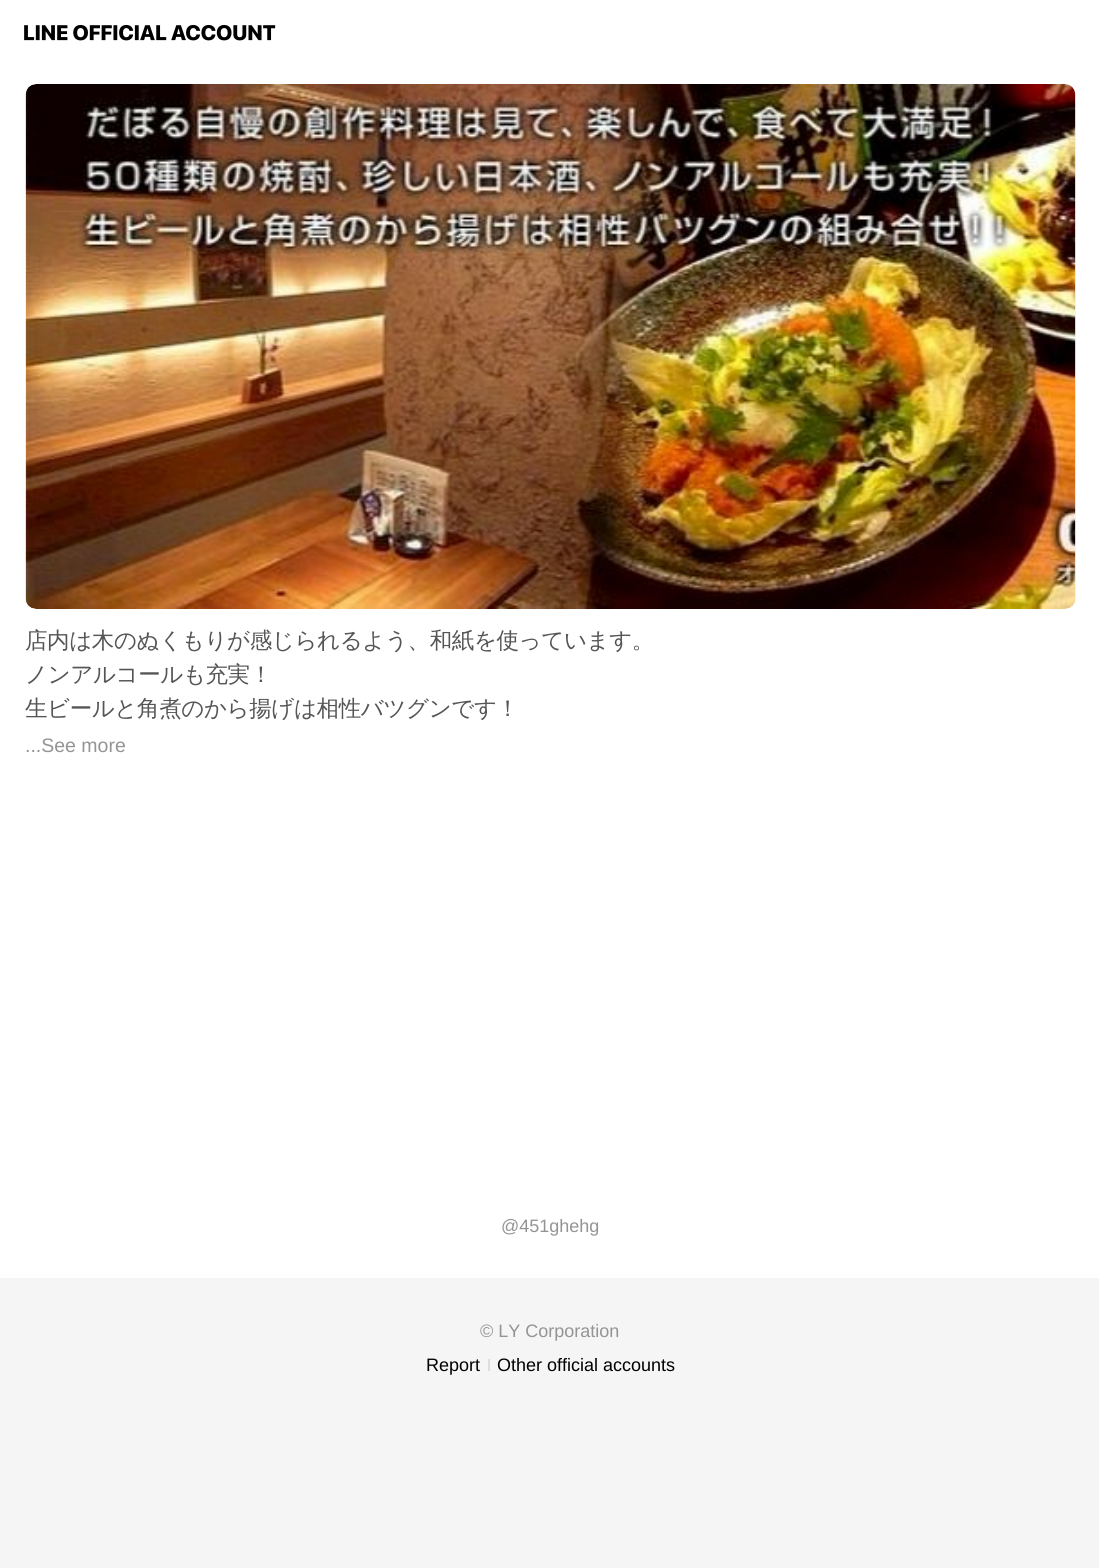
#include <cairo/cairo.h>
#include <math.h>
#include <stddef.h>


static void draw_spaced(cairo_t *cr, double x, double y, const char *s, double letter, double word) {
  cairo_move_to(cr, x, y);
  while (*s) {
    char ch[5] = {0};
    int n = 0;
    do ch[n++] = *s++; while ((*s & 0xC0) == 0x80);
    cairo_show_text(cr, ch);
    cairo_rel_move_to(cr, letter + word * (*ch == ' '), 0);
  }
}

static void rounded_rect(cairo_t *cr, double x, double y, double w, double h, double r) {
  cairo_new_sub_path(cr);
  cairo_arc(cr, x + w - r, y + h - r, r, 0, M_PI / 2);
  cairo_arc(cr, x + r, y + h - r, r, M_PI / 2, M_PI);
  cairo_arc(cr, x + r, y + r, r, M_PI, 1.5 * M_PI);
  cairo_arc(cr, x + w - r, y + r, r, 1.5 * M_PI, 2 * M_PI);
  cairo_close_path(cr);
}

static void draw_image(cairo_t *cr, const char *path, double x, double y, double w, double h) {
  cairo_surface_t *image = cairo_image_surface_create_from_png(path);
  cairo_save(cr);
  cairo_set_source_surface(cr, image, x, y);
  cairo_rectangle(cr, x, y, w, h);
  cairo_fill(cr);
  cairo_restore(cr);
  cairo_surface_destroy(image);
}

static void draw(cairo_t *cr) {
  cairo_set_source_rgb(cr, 1, 1, 1);
  cairo_paint(cr);
  draw_image(cr, "images/1.png", 24, 24, 252, 17);
  cairo_set_source_rgb(cr, 245 / 255.0, 245 / 255.0, 245 / 255.0);
  rounded_rect(cr, 26, 84, 1050, 525, 11);
  cairo_fill(cr);
  draw_image(cr, "images/2.png", 25, 84, 1051, 525);
  cairo_rectangle(cr, 0, 1278, 1099, 290);
  cairo_fill(cr);
  cairo_set_source_rgb(cr, 221 / 255.0, 221 / 255.0, 221 / 255.0);
  cairo_rectangle(cr, 488, 1359, 2, 12);
  cairo_fill(cr);
  cairo_select_font_face(cr, "WenQuanYi Zen Hei Medium", CAIRO_FONT_SLANT_NORMAL, CAIRO_FONT_WEIGHT_NORMAL);
  cairo_set_font_size(cr, 22.5);
  cairo_set_source_rgb(cr, 85 / 255.0, 85 / 255.0, 85 / 255.0);
  draw_spaced(cr, 25, 648, "店内は木のぬくもりが感じられるよう、和紙を使っています。", -0.4, 0);
  draw_spaced(cr, 25, 682, "ノンアルコールも充実！", -0.4, 0);
  draw_spaced(cr, 25, 716, "生ビールと角煮のから揚げは相性バツグンです！", -0.4, 0);
  cairo_select_font_face(cr, "Liberation Sans", CAIRO_FONT_SLANT_NORMAL, CAIRO_FONT_WEIGHT_NORMAL);
  cairo_set_font_size(cr, 19.5);
  cairo_set_source_rgb(cr, 148 / 255.0, 148 / 255.0, 148 / 255.0);
  cairo_move_to(cr, 25, 752);
  cairo_show_text(cr, "...See more");
  cairo_set_font_size(cr, 18);
  cairo_move_to(cr, 501, 1232);
  cairo_show_text(cr, "@451ghehg");
  cairo_move_to(cr, 480, 1337);
  cairo_show_text(cr, "© LY Corporation");
  cairo_set_source_rgb(cr, 0, 0, 0);
  cairo_move_to(cr, 426, 1371);
  cairo_show_text(cr, "Report");
  cairo_move_to(cr, 497, 1371);
  cairo_show_text(cr, "Other official accounts");
}

int main(void) {
  cairo_surface_t *surface = cairo_image_surface_create(CAIRO_FORMAT_RGB24, 1099, 1568);
  cairo_t *cr = cairo_create(surface);
  cairo_font_options_t *options = cairo_font_options_create();
  cairo_font_options_set_hint_metrics(options, CAIRO_HINT_METRICS_OFF);
  cairo_font_options_set_hint_style(options, CAIRO_HINT_STYLE_NONE);
  cairo_set_font_options(cr, options);
  cairo_set_miter_limit(cr, 4);
  draw(cr);
  cairo_surface_write_to_png(surface, "out.png");
  cairo_font_options_destroy(options);
  cairo_destroy(cr);
  cairo_surface_destroy(surface);
  return 0;
}
